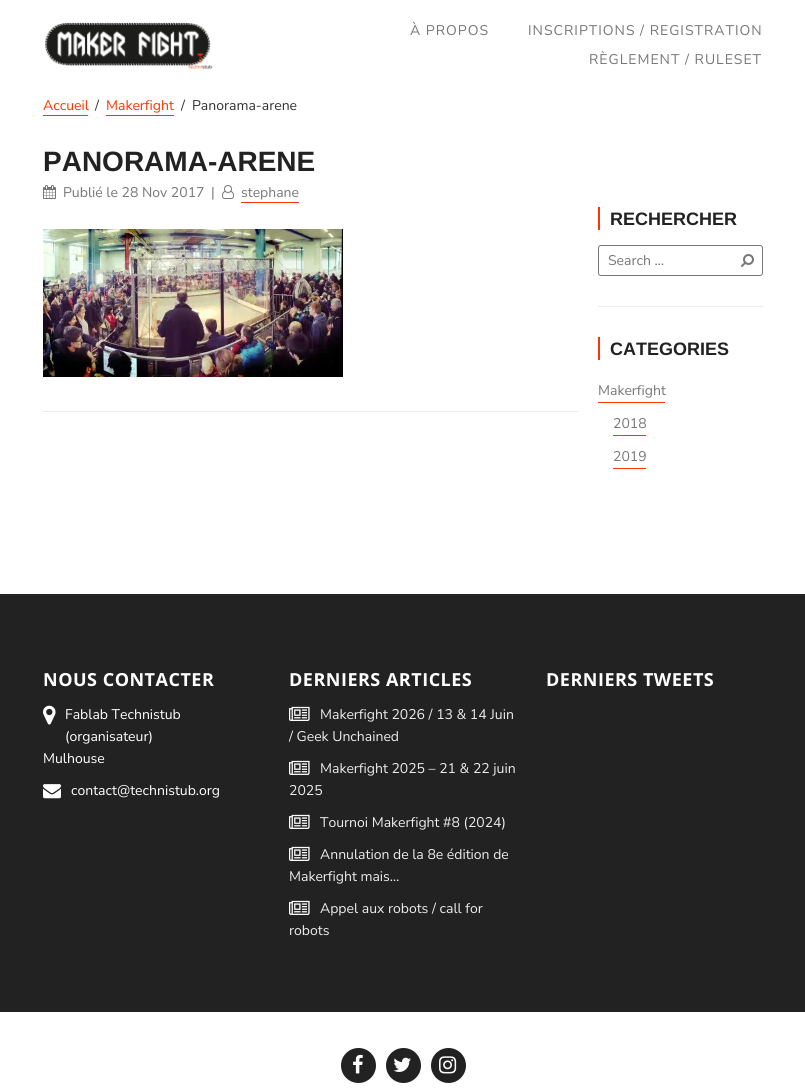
#include <cairo/cairo.h>
#include <math.h>
#include <stddef.h>


static void draw_spaced(cairo_t *cr, double x, double y, const char *s, double letter, double word) {
  cairo_move_to(cr, x, y);
  while (*s) {
    char ch[5] = {0};
    int n = 0;
    do ch[n++] = *s++; while ((*s & 0xC0) == 0x80);
    cairo_show_text(cr, ch);
    cairo_rel_move_to(cr, letter + word * (*ch == ' '), 0);
  }
}

static void rounded_rect(cairo_t *cr, double x, double y, double w, double h, double r) {
  cairo_new_sub_path(cr);
  cairo_arc(cr, x + w - r, y + h - r, r, 0, M_PI / 2);
  cairo_arc(cr, x + r, y + h - r, r, M_PI / 2, M_PI);
  cairo_arc(cr, x + r, y + r, r, M_PI, 1.5 * M_PI);
  cairo_arc(cr, x + w - r, y + r, r, 1.5 * M_PI, 2 * M_PI);
  cairo_close_path(cr);
}

static void draw_image(cairo_t *cr, const char *path, double x, double y, double w, double h) {
  cairo_surface_t *image = cairo_image_surface_create_from_png(path);
  cairo_save(cr);
  cairo_set_source_surface(cr, image, x, y);
  cairo_rectangle(cr, x, y, w, h);
  cairo_fill(cr);
  cairo_restore(cr);
  cairo_surface_destroy(image);
}

static void draw(cairo_t *cr) {
  cairo_set_source_rgb(cr, 1, 1, 1);
  cairo_paint(cr);
  draw_image(cr, "images/1.png", 45, 22, 168, 48);
  cairo_set_source_rgb(cr, 253 / 255.0, 51 / 255.0, 1 / 255.0);
  cairo_rectangle(cr, 43, 115, 45, 1);
  cairo_fill(cr);
  cairo_rectangle(cr, 106, 115, 68, 1);
  cairo_fill(cr);
  cairo_set_source_rgb(cr, 236 / 255.0, 236 / 255.0, 236 / 255.0);
  cairo_rectangle(cr, 43, 411, 535, 1);
  cairo_fill(cr);
  draw_image(cr, "images/2.png", 43, 185, 13, 14);
  draw_image(cr, "images/3.png", 222, 185, 12, 14);
  cairo_set_source_rgb(cr, 253 / 255.0, 51 / 255.0, 1 / 255.0);
  cairo_rectangle(cr, 241, 202, 58, 1);
  cairo_fill(cr);
  draw_image(cr, "images/4.png", 43, 229, 300, 148);
  cairo_set_source_rgb(cr, 236 / 255.0, 236 / 255.0, 236 / 255.0);
  cairo_rectangle(cr, 598, 306, 165, 1);
  cairo_fill(cr);
  cairo_set_source_rgb(cr, 253 / 255.0, 51 / 255.0, 1 / 255.0);
  cairo_rectangle(cr, 598, 207, 2, 23);
  cairo_fill(cr);
  rounded_rect(cr, 598.5, 245.5, 164, 30, 2.5);
  cairo_set_source_rgb(cr, 119 / 255.0, 119 / 255.0, 119 / 255.0);
  cairo_set_line_width(cr, 1);
  cairo_stroke(cr);
  draw_image(cr, "images/5.png", 741, 254, 13, 13);
  cairo_set_source_rgb(cr, 253 / 255.0, 51 / 255.0, 1 / 255.0);
  cairo_rectangle(cr, 598, 337, 2, 23);
  cairo_fill(cr);
  cairo_rectangle(cr, 598, 402, 67, 1);
  cairo_fill(cr);
  cairo_rectangle(cr, 613, 435, 33, 1);
  cairo_fill(cr);
  cairo_rectangle(cr, 613, 468, 33, 1);
  cairo_fill(cr);
  cairo_set_source_rgb(cr, 34 / 255.0, 34 / 255.0, 34 / 255.0);
  cairo_rectangle(cr, 0, 594, 805, 418);
  cairo_fill(cr);
  draw_image(cr, "images/6.png", 43, 705, 13, 20);
  draw_image(cr, "images/7.png", 43, 784, 18, 15);
  draw_image(cr, "images/8.png", 289, 706, 21, 15);
  draw_image(cr, "images/8.png", 289, 760, 21, 15);
  draw_image(cr, "images/8.png", 289, 814, 21, 15);
  draw_image(cr, "images/8.png", 289, 846, 21, 15);
  draw_image(cr, "images/8.png", 289, 900, 21, 15);
  cairo_arc(cr, 358.5, 1065.5, 17.5, 0, 2 * M_PI);
  cairo_fill(cr);
  draw_image(cr, "images/9.png", 353, 1054, 10, 20);
  cairo_arc(cr, 403.5, 1065.5, 17.5, 0, 2 * M_PI);
  cairo_fill(cr);
  draw_image(cr, "images/10.png", 393, 1057, 18, 15);
  cairo_arc(cr, 448.5, 1065.5, 17.5, 0, 2 * M_PI);
  cairo_fill(cr);
  draw_image(cr, "images/11.png", 439, 1056, 18, 18);
  cairo_select_font_face(cr, "Nunito Sans", CAIRO_FONT_SLANT_NORMAL, CAIRO_FONT_WEIGHT_NORMAL);
  cairo_set_font_size(cr, 14);
  cairo_set_source_rgb(cr, 119 / 255.0, 119 / 255.0, 119 / 255.0);
  draw_spaced(cr, 410, 35, "À PROPOS", 1, 0);
  draw_spaced(cr, 528, 35, "INSCRIPTIONS / REGISTRATION", 1, 0);
  draw_spaced(cr, 589, 64, "RÈGLEMENT / RULESET", 1, 0);
  cairo_set_source_rgb(cr, 253 / 255.0, 51 / 255.0, 1 / 255.0);
  cairo_move_to(cr, 43, 110);
  cairo_show_text(cr, "Accueil");
  cairo_set_source_rgb(cr, 51 / 255.0, 51 / 255.0, 51 / 255.0);
  cairo_move_to(cr, 95, 110);
  cairo_show_text(cr, "/");
  cairo_set_source_rgb(cr, 253 / 255.0, 51 / 255.0, 1 / 255.0);
  cairo_move_to(cr, 106, 110);
  cairo_show_text(cr, "Makerfight");
  cairo_set_source_rgb(cr, 51 / 255.0, 51 / 255.0, 51 / 255.0);
  cairo_move_to(cr, 181, 110);
  cairo_show_text(cr, "/");
  cairo_move_to(cr, 192, 110);
  cairo_show_text(cr, "Panorama-arene");
  cairo_select_font_face(cr, "Liberation Sans", CAIRO_FONT_SLANT_NORMAL, CAIRO_FONT_WEIGHT_BOLD);
  cairo_set_font_size(cr, 28);
  cairo_set_source_rgb(cr, 34 / 255.0, 34 / 255.0, 34 / 255.0);
  cairo_move_to(cr, 43, 171);
  cairo_show_text(cr, "PANORAMA-ARENE");
  cairo_select_font_face(cr, "Nunito Sans", CAIRO_FONT_SLANT_NORMAL, CAIRO_FONT_WEIGHT_NORMAL);
  cairo_set_font_size(cr, 14);
  cairo_set_source_rgb(cr, 119 / 255.0, 119 / 255.0, 119 / 255.0);
  cairo_move_to(cr, 63, 197);
  cairo_show_text(cr, "Publié le 28 Nov 2017");
  cairo_move_to(cr, 211, 197);
  cairo_show_text(cr, "|");
  cairo_move_to(cr, 241, 197);
  cairo_show_text(cr, "stephane");
  cairo_select_font_face(cr, "Liberation Sans", CAIRO_FONT_SLANT_NORMAL, CAIRO_FONT_WEIGHT_BOLD);
  cairo_set_font_size(cr, 18);
  cairo_set_source_rgb(cr, 34 / 255.0, 34 / 255.0, 34 / 255.0);
  cairo_move_to(cr, 610, 225);
  cairo_show_text(cr, "RECHERCHER");
  cairo_select_font_face(cr, "Nunito Sans", CAIRO_FONT_SLANT_NORMAL, CAIRO_FONT_WEIGHT_NORMAL);
  cairo_set_font_size(cr, 14);
  cairo_set_source_rgb(cr, 119 / 255.0, 119 / 255.0, 119 / 255.0);
  cairo_move_to(cr, 608, 265);
  cairo_show_text(cr, "Search …");
  cairo_select_font_face(cr, "Liberation Sans", CAIRO_FONT_SLANT_NORMAL, CAIRO_FONT_WEIGHT_BOLD);
  cairo_set_font_size(cr, 18);
  cairo_set_source_rgb(cr, 34 / 255.0, 34 / 255.0, 34 / 255.0);
  cairo_move_to(cr, 610, 355);
  cairo_show_text(cr, "CATEGORIES");
  cairo_select_font_face(cr, "Nunito Sans", CAIRO_FONT_SLANT_NORMAL, CAIRO_FONT_WEIGHT_NORMAL);
  cairo_set_font_size(cr, 14);
  cairo_set_source_rgb(cr, 119 / 255.0, 119 / 255.0, 119 / 255.0);
  cairo_move_to(cr, 598, 395);
  cairo_show_text(cr, "Makerfight");
  cairo_move_to(cr, 613, 428);
  cairo_show_text(cr, "2018");
  cairo_move_to(cr, 613, 461);
  cairo_show_text(cr, "2019");
  cairo_select_font_face(cr, "Open Sans", CAIRO_FONT_SLANT_NORMAL, CAIRO_FONT_WEIGHT_BOLD);
  cairo_set_font_size(cr, 18);
  cairo_set_source_rgb(cr, 1, 1, 1);
  draw_spaced(cr, 43, 686, "NOUS CONTACTER", 0.5, 0);
  cairo_select_font_face(cr, "Nunito Sans", CAIRO_FONT_SLANT_NORMAL, CAIRO_FONT_WEIGHT_NORMAL);
  cairo_set_font_size(cr, 14);
  cairo_move_to(cr, 65, 719);
  cairo_show_text(cr, "Fablab Technistub");
  cairo_move_to(cr, 65, 741);
  cairo_show_text(cr, "(organisateur)");
  cairo_move_to(cr, 43, 763);
  cairo_show_text(cr, "Mulhouse");
  cairo_move_to(cr, 71, 795);
  cairo_show_text(cr, "contact@technistub.org");
  cairo_select_font_face(cr, "Open Sans", CAIRO_FONT_SLANT_NORMAL, CAIRO_FONT_WEIGHT_BOLD);
  cairo_set_font_size(cr, 18);
  draw_spaced(cr, 289, 686, "DERNIERS ARTICLES", 0.5, 0);
  cairo_select_font_face(cr, "Nunito Sans", CAIRO_FONT_SLANT_NORMAL, CAIRO_FONT_WEIGHT_NORMAL);
  cairo_set_font_size(cr, 14);
  cairo_set_source_rgb(cr, 236 / 255.0, 236 / 255.0, 236 / 255.0);
  cairo_move_to(cr, 320, 719);
  cairo_show_text(cr, "Makerfight 2026 / 13 & 14 Juin");
  cairo_move_to(cr, 289, 741);
  cairo_show_text(cr, "/ Geek Unchained");
  cairo_move_to(cr, 320, 773);
  cairo_show_text(cr, "Makerfight 2025 – 21 & 22 juin");
  cairo_move_to(cr, 289, 795);
  cairo_show_text(cr, "2025");
  cairo_move_to(cr, 320, 827);
  cairo_show_text(cr, "Tournoi Makerfight #8 (2024)");
  cairo_move_to(cr, 320, 859);
  cairo_show_text(cr, "Annulation de la 8e édition de");
  cairo_move_to(cr, 289, 881);
  cairo_show_text(cr, "Makerfight mais…");
  cairo_move_to(cr, 320, 913);
  cairo_show_text(cr, "Appel aux robots / call for");
  cairo_move_to(cr, 289, 935);
  cairo_show_text(cr, "robots");
  cairo_select_font_face(cr, "Open Sans", CAIRO_FONT_SLANT_NORMAL, CAIRO_FONT_WEIGHT_BOLD);
  cairo_set_font_size(cr, 18);
  cairo_set_source_rgb(cr, 1, 1, 1);
  draw_spaced(cr, 546, 686, "DERNIERS TWEETS", 0.5, 0);
}

int main(void) {
  cairo_surface_t *surface = cairo_image_surface_create(CAIRO_FORMAT_RGB24, 805, 1090);
  cairo_t *cr = cairo_create(surface);
  cairo_font_options_t *options = cairo_font_options_create();
  cairo_font_options_set_hint_metrics(options, CAIRO_HINT_METRICS_OFF);
  cairo_font_options_set_hint_style(options, CAIRO_HINT_STYLE_NONE);
  cairo_set_font_options(cr, options);
  cairo_set_miter_limit(cr, 4);
  draw(cr);
  cairo_surface_write_to_png(surface, "out.png");
  cairo_font_options_destroy(options);
  cairo_destroy(cr);
  cairo_surface_destroy(surface);
  return 0;
}
